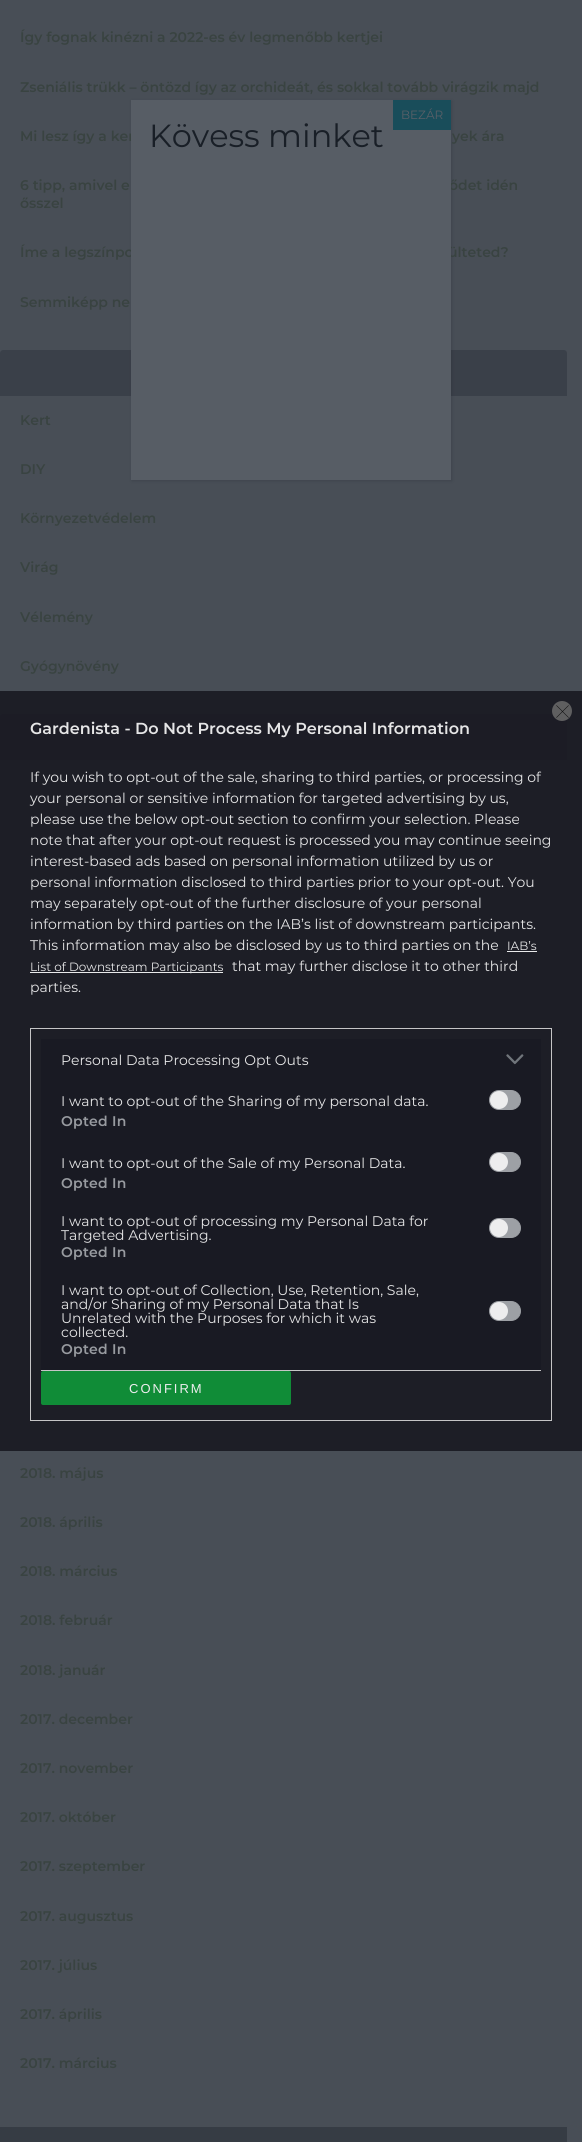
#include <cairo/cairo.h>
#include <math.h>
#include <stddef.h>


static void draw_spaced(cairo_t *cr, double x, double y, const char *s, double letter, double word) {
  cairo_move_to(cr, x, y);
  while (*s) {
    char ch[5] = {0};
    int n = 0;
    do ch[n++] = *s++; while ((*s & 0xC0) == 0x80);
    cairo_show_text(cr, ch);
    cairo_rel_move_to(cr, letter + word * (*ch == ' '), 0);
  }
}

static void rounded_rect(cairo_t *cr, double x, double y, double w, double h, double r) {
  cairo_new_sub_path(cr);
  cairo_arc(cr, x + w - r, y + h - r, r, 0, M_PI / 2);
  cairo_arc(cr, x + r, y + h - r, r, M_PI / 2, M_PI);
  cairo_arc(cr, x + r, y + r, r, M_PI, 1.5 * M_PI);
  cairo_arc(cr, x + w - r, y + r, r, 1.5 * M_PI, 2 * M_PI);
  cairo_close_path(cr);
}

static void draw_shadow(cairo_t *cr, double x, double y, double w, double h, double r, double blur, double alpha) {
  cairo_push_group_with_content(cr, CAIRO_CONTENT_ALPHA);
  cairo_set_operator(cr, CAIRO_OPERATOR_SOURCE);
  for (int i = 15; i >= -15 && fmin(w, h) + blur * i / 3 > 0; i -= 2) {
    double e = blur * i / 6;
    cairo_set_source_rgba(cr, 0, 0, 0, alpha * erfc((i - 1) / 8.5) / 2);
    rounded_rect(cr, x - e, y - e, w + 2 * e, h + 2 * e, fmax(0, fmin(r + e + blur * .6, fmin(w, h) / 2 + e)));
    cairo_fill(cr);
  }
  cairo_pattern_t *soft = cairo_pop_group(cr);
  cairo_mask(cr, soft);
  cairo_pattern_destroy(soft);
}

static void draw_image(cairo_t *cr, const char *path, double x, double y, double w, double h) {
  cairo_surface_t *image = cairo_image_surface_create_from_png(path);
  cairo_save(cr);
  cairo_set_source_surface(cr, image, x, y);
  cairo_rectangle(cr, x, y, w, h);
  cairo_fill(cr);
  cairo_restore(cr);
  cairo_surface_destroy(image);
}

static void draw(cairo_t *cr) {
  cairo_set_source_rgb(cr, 72 / 255.0, 78 / 255.0, 86 / 255.0);
  cairo_paint(cr);
  cairo_set_source_rgb(cr, 58 / 255.0, 64 / 255.0, 73 / 255.0);
  cairo_new_path(cr);
  cairo_move_to(cr, 3, 350);
  cairo_line_to(cr, 564, 350);
  cairo_curve_to(cr, 565.5, 350, 567, 351.5, 567, 353);
  cairo_line_to(cr, 567, 396);
  cairo_line_to(cr, 0, 396);
  cairo_line_to(cr, 0, 353);
  cairo_curve_to(cr, 0, 351.5, 1.5, 350, 3, 350);
  cairo_close_path(cr);
  cairo_fill(cr);
  cairo_new_path(cr);
  cairo_move_to(cr, 3, 714);
  cairo_line_to(cr, 564, 714);
  cairo_curve_to(cr, 565.5, 714, 567, 715.5, 567, 717);
  cairo_line_to(cr, 567, 760);
  cairo_line_to(cr, 0, 760);
  cairo_line_to(cr, 0, 717);
  cairo_curve_to(cr, 0, 715.5, 1.5, 714, 3, 714);
  cairo_close_path(cr);
  cairo_fill(cr);
  cairo_set_source_rgb(cr, 54 / 255.0, 60 / 255.0, 68 / 255.0);
  cairo_rectangle(cr, 0, 2127, 567, 15);
  cairo_fill(cr);
  cairo_set_source_rgb(cr, 25 / 255.0, 31 / 255.0, 40 / 255.0);
  draw_shadow(cr, 132, 101, 320, 380, 0, 1.5, 0.23);
  cairo_set_source_rgba(cr, 25 / 255.0, 25 / 255.0, 34 / 255.0, 0.9);
  cairo_rectangle(cr, 0, 691, 582, 760);
  cairo_fill(cr);
  cairo_set_source_rgb(cr, 95 / 255.0, 95 / 255.0, 96 / 255.0);
  cairo_arc(cr, 562, 711, 10, 0, 2 * M_PI);
  cairo_fill(cr);
  cairo_new_path(cr);
  cairo_move_to(cr, 556.5, 705.5);
  cairo_line_to(cr, 568.5, 717.5);
  cairo_move_to(cr, 568.5, 705.5);
  cairo_line_to(cr, 556.5, 717.5);
  cairo_set_source_rgb(cr, 10 / 255.0, 10 / 255.0, 10 / 255.0);
  cairo_set_line_width(cr, 0.5);
  cairo_set_line_cap(cr, CAIRO_LINE_CAP_ROUND);
  cairo_set_line_join(cr, CAIRO_LINE_JOIN_ROUND);
  cairo_stroke(cr);
  cairo_set_source_rgb(cr, 233 / 255.0, 234 / 255.0, 235 / 255.0);
  cairo_rectangle(cr, 507, 951, 30, 1);
  cairo_fill(cr);
  cairo_rectangle(cr, 30, 972, 193, 1);
  cairo_fill(cr);
  cairo_rectangle(cr, 30.5, 1028.5, 521, 392);
  cairo_set_source_rgb(cr, 197 / 255.0, 197 / 255.0, 198 / 255.0);
  cairo_set_line_width(cr, 1);
  cairo_set_line_cap(cr, CAIRO_LINE_CAP_BUTT);
  cairo_set_line_join(cr, CAIRO_LINE_JOIN_MITER);
  cairo_stroke(cr);
  cairo_set_source_rgb(cr, 25 / 255.0, 26 / 255.0, 35 / 255.0);
  cairo_rectangle(cr, 41, 1039, 500, 331);
  cairo_fill(cr);
  cairo_set_source_rgb(cr, 197 / 255.0, 197 / 255.0, 198 / 255.0);
  cairo_rectangle(cr, 41, 1370, 500, 1);
  cairo_fill(cr);
  draw_image(cr, "images/1.png", 506, 1054, 18, 11);
  cairo_set_source_rgb(cr, 157 / 255.0, 160 / 255.0, 165 / 255.0);
  rounded_rect(cr, 489.5, 1090.5, 31, 19, 9.5);
  cairo_fill_preserve(cr);
  cairo_stroke(cr);
  cairo_set_source_rgb(cr, 237 / 255.0, 237 / 255.0, 238 / 255.0);
  cairo_arc(cr, 499, 1100, 9, 0, 2 * M_PI);
  cairo_fill(cr);
  cairo_set_source_rgb(cr, 157 / 255.0, 160 / 255.0, 165 / 255.0);
  rounded_rect(cr, 489.5, 1152.5, 31, 19, 9.5);
  cairo_fill_preserve(cr);
  cairo_stroke(cr);
  cairo_set_source_rgb(cr, 237 / 255.0, 237 / 255.0, 238 / 255.0);
  cairo_arc(cr, 499, 1162, 9, 0, 2 * M_PI);
  cairo_fill(cr);
  cairo_set_source_rgb(cr, 157 / 255.0, 160 / 255.0, 165 / 255.0);
  rounded_rect(cr, 489.5, 1218.5, 31, 19, 9.5);
  cairo_fill_preserve(cr);
  cairo_stroke(cr);
  cairo_set_source_rgb(cr, 237 / 255.0, 237 / 255.0, 238 / 255.0);
  cairo_arc(cr, 499, 1228, 9, 0, 2 * M_PI);
  cairo_fill(cr);
  cairo_set_source_rgb(cr, 157 / 255.0, 160 / 255.0, 165 / 255.0);
  rounded_rect(cr, 489.5, 1301.5, 31, 19, 9.5);
  cairo_fill_preserve(cr);
  cairo_stroke(cr);
  cairo_set_source_rgb(cr, 237 / 255.0, 237 / 255.0, 238 / 255.0);
  cairo_arc(cr, 499, 1311, 9, 0, 2 * M_PI);
  cairo_fill(cr);
  cairo_set_source_rgb(cr, 16 / 255.0, 140 / 255.0, 55 / 255.0);
  rounded_rect(cr, 41, 1371, 250, 34, 2);
  cairo_fill(cr);
  cairo_select_font_face(cr, "Montserrat SemiBold", CAIRO_FONT_SLANT_NORMAL, CAIRO_FONT_WEIGHT_NORMAL);
  cairo_set_font_size(cr, 14);
  cairo_set_source_rgb(cr, 57 / 255.0, 67 / 255.0, 65 / 255.0);
  cairo_move_to(cr, 20, 42);
  cairo_show_text(cr, "Így fognak kinézni a 2022-es év legmenőbb kertjei");
  cairo_move_to(cr, 20, 92);
  cairo_show_text(cr, "Zseniális trükk – öntözd így az orchideát, és sokkal tovább virágzik majd");
  cairo_move_to(cr, 20, 141);
  cairo_show_text(cr, "Mi lesz így a ker");
  cairo_move_to(cr, 452, 141);
  cairo_show_text(cr, "yek ára");
  cairo_move_to(cr, 20, 190);
  cairo_show_text(cr, "6 tipp, amivel e");
  cairo_move_to(cr, 449, 190);
  cairo_show_text(cr, "ődet idén");
  cairo_move_to(cr, 20, 208);
  cairo_show_text(cr, "ősszel");
  cairo_move_to(cr, 20, 257);
  cairo_show_text(cr, "Íme a legszínpo");
  cairo_move_to(cr, 448, 257);
  cairo_show_text(cr, "ülteted?");
  cairo_move_to(cr, 20, 307);
  cairo_show_text(cr, "Semmiképp ne");
  cairo_move_to(cr, 20, 425);
  cairo_show_text(cr, "Kert");
  cairo_move_to(cr, 20, 474);
  cairo_show_text(cr, "DIY");
  cairo_move_to(cr, 20, 523);
  cairo_show_text(cr, "Környezetvédelem");
  cairo_move_to(cr, 20, 572);
  cairo_show_text(cr, "Virág");
  cairo_move_to(cr, 20, 622);
  cairo_show_text(cr, "Vélemény");
  cairo_move_to(cr, 20, 671);
  cairo_show_text(cr, "Gyógynövény");
  cairo_move_to(cr, 20, 1478);
  cairo_show_text(cr, "2018. május");
  cairo_move_to(cr, 20, 1527);
  cairo_show_text(cr, "2018. április");
  cairo_move_to(cr, 20, 1576);
  cairo_show_text(cr, "2018. március");
  cairo_move_to(cr, 20, 1625);
  cairo_show_text(cr, "2018. február");
  cairo_move_to(cr, 20, 1675);
  cairo_show_text(cr, "2018. január");
  cairo_move_to(cr, 20, 1724);
  cairo_show_text(cr, "2017. december");
  cairo_move_to(cr, 20, 1773);
  cairo_show_text(cr, "2017. november");
  cairo_move_to(cr, 20, 1822);
  cairo_show_text(cr, "2017. október");
  cairo_move_to(cr, 20, 1871);
  cairo_show_text(cr, "2017. szeptember");
  cairo_move_to(cr, 20, 1921);
  cairo_show_text(cr, "2017. augusztus");
  cairo_move_to(cr, 20, 1970);
  cairo_show_text(cr, "2017. július");
  cairo_move_to(cr, 20, 2019);
  cairo_show_text(cr, "2017. április");
  cairo_move_to(cr, 20, 2068);
  cairo_show_text(cr, "2017. március");
  cairo_set_source_rgb(cr, 87 / 255.0, 93 / 255.0, 101 / 255.0);
  cairo_rectangle(cr, 131, 100, 320, 380);
  cairo_fill(cr);
  cairo_set_source_rgb(cr, 25 / 255.0, 77 / 255.0, 90 / 255.0);
  cairo_rectangle(cr, 393, 100, 58, 30);
  cairo_fill(cr);
  cairo_select_font_face(cr, "Montserrat Thin", CAIRO_FONT_SLANT_NORMAL, CAIRO_FONT_WEIGHT_NORMAL);
  cairo_set_font_size(cr, 12);
  cairo_set_source_rgb(cr, 89 / 255.0, 95 / 255.0, 103 / 255.0);
  cairo_move_to(cr, 401, 119);
  cairo_show_text(cr, "BEZÁR");
  cairo_set_font_size(cr, 32);
  cairo_set_source_rgb(cr, 25 / 255.0, 31 / 255.0, 39 / 255.0);
  cairo_move_to(cr, 149, 147);
  cairo_show_text(cr, "Kövess minket");
  cairo_select_font_face(cr, "Montserrat SemiBold", CAIRO_FONT_SLANT_NORMAL, CAIRO_FONT_WEIGHT_NORMAL);
  cairo_set_font_size(cr, 16);
  cairo_set_source_rgb(cr, 229 / 255.0, 229 / 255.0, 230 / 255.0);
  cairo_move_to(cr, 30, 734);
  cairo_show_text(cr, "Gardenista -");
  cairo_move_to(cr, 135, 734);
  cairo_show_text(cr, "Do Not Process My Personal Information");
  cairo_select_font_face(cr, "Montserrat Thin", CAIRO_FONT_SLANT_NORMAL, CAIRO_FONT_WEIGHT_NORMAL);
  cairo_set_font_size(cr, 14);
  cairo_move_to(cr, 30, 782);
  cairo_show_text(cr, "If you wish to opt-out of the sale, sharing to third parties, or processing of");
  cairo_move_to(cr, 30, 803);
  cairo_show_text(cr, "your personal or sensitive information for targeted advertising by us,");
  cairo_move_to(cr, 30, 824);
  cairo_show_text(cr, "please use the below opt-out section to confirm your selection. Please");
  cairo_move_to(cr, 30, 845);
  cairo_show_text(cr, "note that after your opt-out request is processed you may continue seeing");
  cairo_move_to(cr, 30, 866);
  cairo_show_text(cr, "interest-based ads based on personal information utilized by us or");
  cairo_move_to(cr, 30, 887);
  cairo_show_text(cr, "personal information disclosed to third parties prior to your opt-out. You");
  cairo_move_to(cr, 30, 908);
  cairo_show_text(cr, "may separately opt-out of the further disclosure of your personal");
  cairo_move_to(cr, 30, 929);
  cairo_show_text(cr, "information by third parties on the IAB’s list of downstream participants.");
  cairo_move_to(cr, 30, 950);
  cairo_show_text(cr, "This information may also be disclosed by us to third parties on the");
  cairo_set_font_size(cr, 12);
  cairo_move_to(cr, 507, 950);
  cairo_show_text(cr, "IAB’s");
  cairo_move_to(cr, 30, 971);
  cairo_show_text(cr, "List of Downstream Participants");
  cairo_set_font_size(cr, 14);
  cairo_move_to(cr, 232, 971);
  cairo_show_text(cr, "that may further disclose it to other third");
  cairo_move_to(cr, 30, 992);
  cairo_show_text(cr, "parties.");
  cairo_move_to(cr, 61, 1065);
  cairo_show_text(cr, "Personal Data Processing Opt Outs");
  cairo_move_to(cr, 61, 1106);
  cairo_show_text(cr, "I want to opt-out of the Sharing of my personal data.");
  cairo_select_font_face(cr, "Montserrat SemiBold", CAIRO_FONT_SLANT_NORMAL, CAIRO_FONT_WEIGHT_NORMAL);
  cairo_set_source_rgb(cr, 152 / 255.0, 155 / 255.0, 160 / 255.0);
  draw_spaced(cr, 61, 1126, "Opted In", 0.25, 0);
  cairo_select_font_face(cr, "Montserrat Thin", CAIRO_FONT_SLANT_NORMAL, CAIRO_FONT_WEIGHT_NORMAL);
  cairo_set_source_rgb(cr, 229 / 255.0, 229 / 255.0, 230 / 255.0);
  cairo_move_to(cr, 61, 1168);
  cairo_show_text(cr, "I want to opt-out of the Sale of my Personal Data.");
  cairo_select_font_face(cr, "Montserrat SemiBold", CAIRO_FONT_SLANT_NORMAL, CAIRO_FONT_WEIGHT_NORMAL);
  cairo_set_source_rgb(cr, 152 / 255.0, 155 / 255.0, 160 / 255.0);
  draw_spaced(cr, 61, 1188, "Opted In", 0.25, 0);
  cairo_select_font_face(cr, "Montserrat Thin", CAIRO_FONT_SLANT_NORMAL, CAIRO_FONT_WEIGHT_NORMAL);
  cairo_set_source_rgb(cr, 229 / 255.0, 229 / 255.0, 230 / 255.0);
  cairo_move_to(cr, 61, 1226);
  cairo_show_text(cr, "I want to opt-out of processing my Personal Data for");
  cairo_move_to(cr, 61, 1240);
  cairo_show_text(cr, "Targeted Advertising.");
  cairo_select_font_face(cr, "Montserrat SemiBold", CAIRO_FONT_SLANT_NORMAL, CAIRO_FONT_WEIGHT_NORMAL);
  cairo_set_source_rgb(cr, 152 / 255.0, 155 / 255.0, 160 / 255.0);
  draw_spaced(cr, 61, 1257, "Opted In", 0.25, 0);
  cairo_select_font_face(cr, "Montserrat Thin", CAIRO_FONT_SLANT_NORMAL, CAIRO_FONT_WEIGHT_NORMAL);
  cairo_set_source_rgb(cr, 229 / 255.0, 229 / 255.0, 230 / 255.0);
  cairo_move_to(cr, 61, 1295);
  cairo_show_text(cr, "I want to opt-out of Collection, Use, Retention, Sale,");
  cairo_move_to(cr, 61, 1309);
  cairo_show_text(cr, "and/or Sharing of my Personal Data that Is");
  cairo_move_to(cr, 61, 1323);
  cairo_show_text(cr, "Unrelated with the Purposes for which it was");
  cairo_move_to(cr, 61, 1337);
  cairo_show_text(cr, "collected.");
  cairo_select_font_face(cr, "Montserrat SemiBold", CAIRO_FONT_SLANT_NORMAL, CAIRO_FONT_WEIGHT_NORMAL);
  cairo_set_source_rgb(cr, 152 / 255.0, 155 / 255.0, 160 / 255.0);
  draw_spaced(cr, 61, 1354, "Opted In", 0.25, 0);
  cairo_select_font_face(cr, "Liberation Sans", CAIRO_FONT_SLANT_NORMAL, CAIRO_FONT_WEIGHT_NORMAL);
  cairo_set_font_size(cr, 13);
  cairo_set_source_rgb(cr, 237 / 255.0, 237 / 255.0, 238 / 255.0);
  draw_spaced(cr, 129, 1393, "CONFIRM", 2, 0);
}

int main(void) {
  cairo_surface_t *surface = cairo_image_surface_create(CAIRO_FORMAT_RGB24, 582, 2142);
  cairo_t *cr = cairo_create(surface);
  cairo_font_options_t *options = cairo_font_options_create();
  cairo_font_options_set_hint_metrics(options, CAIRO_HINT_METRICS_OFF);
  cairo_font_options_set_hint_style(options, CAIRO_HINT_STYLE_NONE);
  cairo_set_font_options(cr, options);
  cairo_set_miter_limit(cr, 4);
  draw(cr);
  cairo_surface_write_to_png(surface, "out.png");
  cairo_font_options_destroy(options);
  cairo_destroy(cr);
  cairo_surface_destroy(surface);
  return 0;
}
